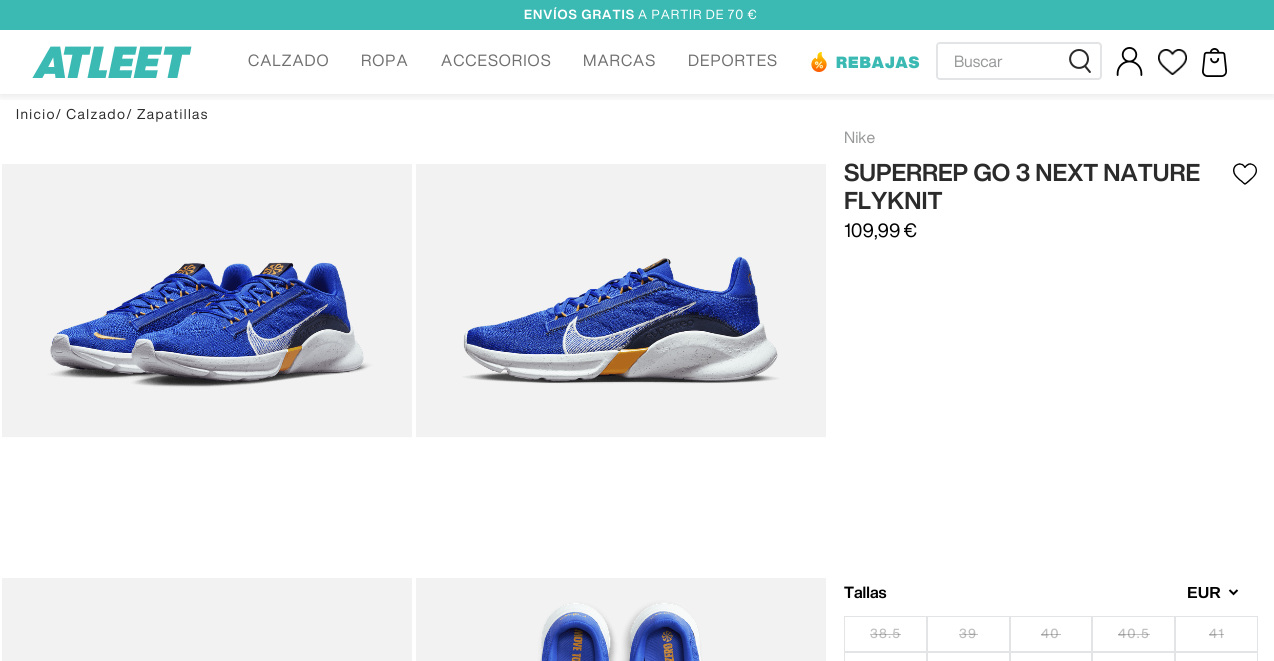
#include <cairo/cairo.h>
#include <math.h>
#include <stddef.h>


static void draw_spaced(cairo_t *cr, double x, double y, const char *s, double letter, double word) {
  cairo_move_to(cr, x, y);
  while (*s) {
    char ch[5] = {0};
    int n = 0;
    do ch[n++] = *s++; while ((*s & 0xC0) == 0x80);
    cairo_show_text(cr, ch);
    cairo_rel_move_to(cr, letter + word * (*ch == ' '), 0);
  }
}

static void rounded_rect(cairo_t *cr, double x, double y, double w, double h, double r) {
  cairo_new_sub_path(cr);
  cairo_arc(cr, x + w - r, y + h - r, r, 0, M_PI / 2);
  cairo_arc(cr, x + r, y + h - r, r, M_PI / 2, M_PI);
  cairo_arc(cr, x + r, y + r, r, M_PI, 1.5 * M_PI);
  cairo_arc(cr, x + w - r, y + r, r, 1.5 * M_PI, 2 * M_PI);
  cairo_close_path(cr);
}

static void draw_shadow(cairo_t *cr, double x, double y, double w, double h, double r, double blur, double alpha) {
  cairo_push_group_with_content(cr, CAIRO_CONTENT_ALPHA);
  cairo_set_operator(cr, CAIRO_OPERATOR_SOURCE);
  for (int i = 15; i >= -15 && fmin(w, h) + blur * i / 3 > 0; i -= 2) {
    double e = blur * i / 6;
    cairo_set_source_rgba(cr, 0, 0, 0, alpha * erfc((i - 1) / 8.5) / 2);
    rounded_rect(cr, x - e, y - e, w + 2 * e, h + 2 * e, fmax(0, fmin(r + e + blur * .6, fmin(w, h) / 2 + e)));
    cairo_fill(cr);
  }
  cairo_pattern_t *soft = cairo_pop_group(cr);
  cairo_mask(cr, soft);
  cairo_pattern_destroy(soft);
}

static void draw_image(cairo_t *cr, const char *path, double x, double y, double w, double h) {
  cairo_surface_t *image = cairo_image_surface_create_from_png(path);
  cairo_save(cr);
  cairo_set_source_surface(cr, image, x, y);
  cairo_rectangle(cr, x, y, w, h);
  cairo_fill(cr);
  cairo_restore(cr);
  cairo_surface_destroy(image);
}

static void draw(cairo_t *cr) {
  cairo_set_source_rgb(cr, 1, 1, 1);
  cairo_paint(cr);
  cairo_set_source_rgb(cr, 242 / 255.0, 242 / 255.0, 242 / 255.0);
  cairo_rectangle(cr, 2, 164, 410, 274);
  cairo_fill(cr);
  draw_image(cr, "images/7.png", 2, 96, 410, 410);
  cairo_rectangle(cr, 416, 164, 410, 274);
  cairo_fill(cr);
  draw_image(cr, "images/8.png", 416, 96, 410, 410);
  cairo_save(cr);
  cairo_rectangle(cr, 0, 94, 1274, 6);
  cairo_clip(cr);
  cairo_set_source_rgb(cr, 0, 0, 0);
  draw_shadow(cr, 0, 2, 1274, 94, 0, 5, 0.1);
  cairo_restore(cr);
  cairo_set_source_rgb(cr, 59 / 255.0, 186 / 255.0, 180 / 255.0);
  cairo_rectangle(cr, 0, 0, 1274, 30);
  cairo_fill(cr);
  draw_image(cr, "images/1.png", 32, 46, 160, 32);
  draw_image(cr, "images/2.png", 811, 52, 16, 20);
  rounded_rect(cr, 937, 43, 164, 36, 3);
  cairo_set_source_rgb(cr, 227 / 255.0, 228 / 255.0, 230 / 255.0);
  cairo_stroke(cr);
  cairo_set_source_rgb(cr, 1, 1, 1);
  cairo_new_path(cr);
  cairo_move_to(cr, 940, 44);
  cairo_line_to(cr, 1067, 44);
  cairo_curve_to(cr, 1067.5, 44, 1068, 44.5, 1068, 45);
  cairo_line_to(cr, 1068, 77);
  cairo_curve_to(cr, 1068, 77.5, 1067.5, 78, 1067, 78);
  cairo_line_to(cr, 940, 78);
  cairo_curve_to(cr, 939, 78, 938, 77, 938, 76);
  cairo_line_to(cr, 938, 46);
  cairo_curve_to(cr, 938, 45, 939, 44, 940, 44);
  cairo_close_path(cr);
  cairo_fill(cr);
  draw_image(cr, "images/3.png", 1069, 49, 22, 24);
  draw_image(cr, "images/4.png", 1116, 47, 27, 29);
  draw_image(cr, "images/5.png", 1158, 49, 29, 26);
  draw_image(cr, "images/6.png", 1202, 48, 25, 29);
  cairo_set_source_rgb(cr, 242 / 255.0, 242 / 255.0, 242 / 255.0);
  cairo_rectangle(cr, 2, 578, 410, 83);
  cairo_fill(cr);
  cairo_rectangle(cr, 416, 578, 410, 83);
  cairo_fill(cr);
  draw_image(cr, "images/9.png", 416, 510, 410, 151);
  draw_image(cr, "images/10.png", 1233, 163, 24, 22);
  cairo_new_path(cr);
  cairo_move_to(cr, 1229.5, 590);
  cairo_line_to(cr, 1233.5, 594);
  cairo_line_to(cr, 1237.5, 590);
  cairo_set_source_rgb(cr, 0, 0, 0);
  cairo_stroke(cr);
  cairo_rectangle(cr, 844.5, 616.5, 82, 35);
  cairo_set_source_rgb(cr, 227 / 255.0, 228 / 255.0, 230 / 255.0);
  cairo_set_line_width(cr, 1);
  cairo_stroke(cr);
  cairo_rectangle(cr, 927.5, 616.5, 82, 35);
  cairo_stroke(cr);
  cairo_rectangle(cr, 1010.5, 616.5, 81, 35);
  cairo_stroke(cr);
  cairo_rectangle(cr, 1092.5, 616.5, 82, 35);
  cairo_stroke(cr);
  cairo_rectangle(cr, 1175.5, 616.5, 82, 35);
  cairo_stroke(cr);
  cairo_rectangle(cr, 844.5, 652.5, 82, 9);
  cairo_stroke(cr);
  cairo_rectangle(cr, 927.5, 652.5, 82, 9);
  cairo_stroke(cr);
  cairo_rectangle(cr, 1010.5, 652.5, 81, 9);
  cairo_stroke(cr);
  cairo_rectangle(cr, 1092.5, 652.5, 82, 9);
  cairo_stroke(cr);
  cairo_rectangle(cr, 1175.5, 652.5, 82, 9);
  cairo_stroke(cr);
  cairo_select_font_face(cr, "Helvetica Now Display", CAIRO_FONT_SLANT_NORMAL, CAIRO_FONT_WEIGHT_BOLD);
  cairo_set_font_size(cr, 13);
  cairo_set_source_rgb(cr, 1, 1, 1);
  draw_spaced(cr, 524, 19, "ENVÍOS GRATIS", 1, 0);
  cairo_select_font_face(cr, "Helvetica Now Display", CAIRO_FONT_SLANT_NORMAL, CAIRO_FONT_WEIGHT_NORMAL);
  draw_spaced(cr, 638, 19, "A PARTIR DE 70 €", 1, 0);
  cairo_set_font_size(cr, 16);
  cairo_set_source_rgb(cr, 112 / 255.0, 112 / 255.0, 112 / 255.0);
  draw_spaced(cr, 248, 66, "CALZADO", 1, 0);
  draw_spaced(cr, 361, 66, "ROPA", 1, 0);
  draw_spaced(cr, 441, 66, "ACCESORIOS", 1, 0);
  draw_spaced(cr, 583, 66, "MARCAS", 1, 0);
  draw_spaced(cr, 688, 66, "DEPORTES", 1, 0);
  cairo_select_font_face(cr, "Helvetica Now Display Black", CAIRO_FONT_SLANT_NORMAL, CAIRO_FONT_WEIGHT_NORMAL);
  cairo_set_source_rgb(cr, 59 / 255.0, 186 / 255.0, 180 / 255.0);
  draw_spaced(cr, 836, 68, "REBAJAS", 1, 0);
  cairo_select_font_face(cr, "Helvetica Now Display", CAIRO_FONT_SLANT_NORMAL, CAIRO_FONT_WEIGHT_NORMAL);
  cairo_set_source_rgb(cr, 151 / 255.0, 152 / 255.0, 153 / 255.0);
  cairo_move_to(cr, 954, 67);
  cairo_show_text(cr, "Buscar");
  cairo_set_font_size(cr, 14);
  cairo_set_source_rgb(cr, 43 / 255.0, 43 / 255.0, 43 / 255.0);
  draw_spaced(cr, 16, 119, "Inicio/ Calzado/ Zapatillas", 1.4, 0);
  cairo_set_font_size(cr, 16);
  cairo_set_source_rgb(cr, 151 / 255.0, 152 / 255.0, 153 / 255.0);
  cairo_move_to(cr, 844, 143);
  cairo_show_text(cr, "Nike");
  cairo_select_font_face(cr, "Helvetica Now Display", CAIRO_FONT_SLANT_NORMAL, CAIRO_FONT_WEIGHT_BOLD);
  cairo_set_font_size(cr, 24);
  cairo_set_source_rgb(cr, 43 / 255.0, 43 / 255.0, 43 / 255.0);
  cairo_move_to(cr, 844, 181);
  cairo_show_text(cr, "SUPERREP GO 3 NEXT NATURE");
  cairo_move_to(cr, 844, 209);
  cairo_show_text(cr, "FLYKNIT");
  cairo_select_font_face(cr, "Helvetica Now Display", CAIRO_FONT_SLANT_NORMAL, CAIRO_FONT_WEIGHT_NORMAL);
  cairo_set_font_size(cr, 19);
  cairo_set_source_rgb(cr, 0, 0, 0);
  cairo_move_to(cr, 844, 237);
  cairo_show_text(cr, "109,99 €");
  cairo_select_font_face(cr, "Helvetica Now Display", CAIRO_FONT_SLANT_NORMAL, CAIRO_FONT_WEIGHT_BOLD);
  cairo_set_font_size(cr, 16);
  cairo_move_to(cr, 844, 598);
  cairo_show_text(cr, "Tallas");
  cairo_select_font_face(cr, "Liberation Sans", CAIRO_FONT_SLANT_NORMAL, CAIRO_FONT_WEIGHT_BOLD);
  cairo_move_to(cr, 1187, 598);
  cairo_show_text(cr, "EUR");
  cairo_select_font_face(cr, "Helvetica Now Display Medium", CAIRO_FONT_SLANT_NORMAL, CAIRO_FONT_WEIGHT_NORMAL);
  cairo_set_font_size(cr, 13);
  cairo_set_source_rgb(cr, 191 / 255.0, 191 / 255.0, 191 / 255.0);
  draw_spaced(cr, 870, 638, "38.5", 1.4, 0);
  cairo_set_source_rgba(cr, 43 / 255.0, 43 / 255.0, 43 / 255.0, 0.3);
  cairo_rectangle(cr, 870, 634, 31, 1);
  cairo_fill(cr);
  cairo_set_source_rgb(cr, 191 / 255.0, 191 / 255.0, 191 / 255.0);
  draw_spaced(cr, 959, 638, "39", 1.4, 0);
  cairo_set_source_rgba(cr, 43 / 255.0, 43 / 255.0, 43 / 255.0, 0.3);
  cairo_rectangle(cr, 959, 634, 19, 1);
  cairo_fill(cr);
  cairo_set_source_rgb(cr, 191 / 255.0, 191 / 255.0, 191 / 255.0);
  draw_spaced(cr, 1041, 638, "40", 1.4, 0);
  cairo_set_source_rgba(cr, 43 / 255.0, 43 / 255.0, 43 / 255.0, 0.3);
  cairo_rectangle(cr, 1041, 634, 20, 1);
  cairo_fill(cr);
  cairo_set_source_rgb(cr, 191 / 255.0, 191 / 255.0, 191 / 255.0);
  draw_spaced(cr, 1118, 638, "40.5", 1.4, 0);
  cairo_set_source_rgba(cr, 43 / 255.0, 43 / 255.0, 43 / 255.0, 0.3);
  cairo_rectangle(cr, 1118, 634, 32, 1);
  cairo_fill(cr);
  cairo_set_source_rgb(cr, 191 / 255.0, 191 / 255.0, 191 / 255.0);
  draw_spaced(cr, 1209, 638, "41", 1.4, 0);
  cairo_set_source_rgba(cr, 43 / 255.0, 43 / 255.0, 43 / 255.0, 0.3);
  cairo_rectangle(cr, 1209, 634, 15, 1);
  cairo_fill(cr);
}

int main(void) {
  cairo_surface_t *surface = cairo_image_surface_create(CAIRO_FORMAT_RGB24, 1274, 661);
  cairo_t *cr = cairo_create(surface);
  cairo_font_options_t *options = cairo_font_options_create();
  cairo_font_options_set_hint_metrics(options, CAIRO_HINT_METRICS_OFF);
  cairo_font_options_set_hint_style(options, CAIRO_HINT_STYLE_NONE);
  cairo_set_font_options(cr, options);
  cairo_set_miter_limit(cr, 4);
  draw(cr);
  cairo_surface_write_to_png(surface, "out.png");
  cairo_font_options_destroy(options);
  cairo_destroy(cr);
  cairo_surface_destroy(surface);
  return 0;
}
